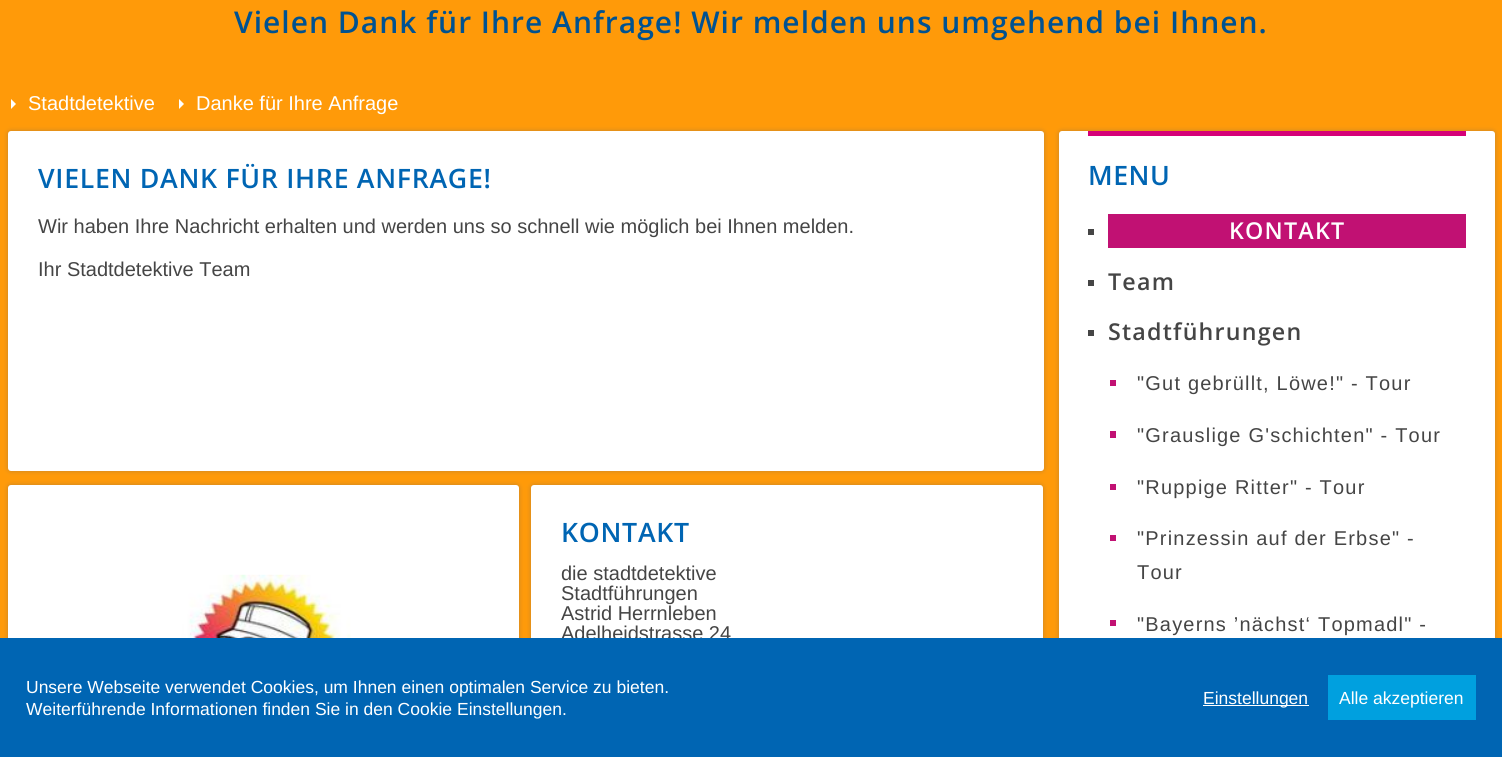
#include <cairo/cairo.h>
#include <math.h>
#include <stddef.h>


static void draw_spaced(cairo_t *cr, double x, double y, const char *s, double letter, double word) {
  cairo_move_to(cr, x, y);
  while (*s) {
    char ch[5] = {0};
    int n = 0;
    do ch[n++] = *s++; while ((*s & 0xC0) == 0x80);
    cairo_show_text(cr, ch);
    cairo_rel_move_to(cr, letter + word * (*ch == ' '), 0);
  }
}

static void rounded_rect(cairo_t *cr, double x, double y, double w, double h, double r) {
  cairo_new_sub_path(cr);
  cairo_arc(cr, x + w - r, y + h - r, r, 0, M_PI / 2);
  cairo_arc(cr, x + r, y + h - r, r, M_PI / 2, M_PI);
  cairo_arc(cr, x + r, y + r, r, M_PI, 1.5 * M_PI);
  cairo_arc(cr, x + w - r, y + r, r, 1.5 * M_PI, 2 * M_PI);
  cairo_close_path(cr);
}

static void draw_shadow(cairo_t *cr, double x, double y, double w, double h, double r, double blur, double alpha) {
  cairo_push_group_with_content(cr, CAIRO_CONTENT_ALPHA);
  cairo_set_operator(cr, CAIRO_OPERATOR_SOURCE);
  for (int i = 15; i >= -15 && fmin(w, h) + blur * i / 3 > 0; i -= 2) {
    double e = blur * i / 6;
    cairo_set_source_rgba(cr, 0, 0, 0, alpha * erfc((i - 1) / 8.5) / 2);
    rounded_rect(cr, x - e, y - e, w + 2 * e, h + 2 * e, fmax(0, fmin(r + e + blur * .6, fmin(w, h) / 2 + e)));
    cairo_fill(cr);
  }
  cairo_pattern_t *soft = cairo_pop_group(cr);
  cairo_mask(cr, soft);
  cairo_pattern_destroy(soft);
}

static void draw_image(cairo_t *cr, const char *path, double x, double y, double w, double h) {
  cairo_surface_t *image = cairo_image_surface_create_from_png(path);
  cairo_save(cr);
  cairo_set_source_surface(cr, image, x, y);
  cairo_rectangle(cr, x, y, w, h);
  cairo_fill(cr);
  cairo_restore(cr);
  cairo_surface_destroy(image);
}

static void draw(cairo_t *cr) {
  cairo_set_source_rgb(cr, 1, 154 / 255.0, 9 / 255.0);
  cairo_paint(cr);
  cairo_set_source_rgb(cr, 1, 1, 1);
  cairo_new_path(cr);
  cairo_move_to(cr, 11, 109);
  cairo_line_to(cr, 16, 104);
  cairo_line_to(cr, 11, 99);
  cairo_close_path(cr);
  cairo_fill(cr);
  cairo_new_path(cr);
  cairo_move_to(cr, 179, 109);
  cairo_line_to(cr, 184, 104);
  cairo_line_to(cr, 179, 99);
  cairo_close_path(cr);
  cairo_fill(cr);
  cairo_set_source_rgb(cr, 196 / 255.0, 133 / 255.0, 45 / 255.0);
  draw_shadow(cr, 8, 131, 1036, 340, 3, 2.5, 1);
  cairo_set_source_rgb(cr, 1, 1, 1);
  rounded_rect(cr, 8, 131, 1036, 340, 3);
  cairo_fill(cr);
  cairo_set_source_rgb(cr, 196 / 255.0, 133 / 255.0, 45 / 255.0);
  draw_shadow(cr, 8, 485, 511, 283, 3, 2.5, 1);
  cairo_set_source_rgb(cr, 1, 1, 1);
  rounded_rect(cr, 8, 485, 511, 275, 3);
  cairo_fill(cr);
  draw_image(cr, "images/1.png", 175, 574, 176, 64);
  cairo_set_source_rgb(cr, 196 / 255.0, 133 / 255.0, 45 / 255.0);
  draw_shadow(cr, 531, 485, 512, 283, 3, 2.5, 1);
  cairo_set_source_rgb(cr, 1, 1, 1);
  rounded_rect(cr, 531, 485, 512, 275, 3);
  cairo_fill(cr);
  cairo_set_source_rgb(cr, 196 / 255.0, 133 / 255.0, 45 / 255.0);
  draw_shadow(cr, 1059, 131, 436, 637, 3, 2.5, 1);
  cairo_set_source_rgb(cr, 1, 1, 1);
  rounded_rect(cr, 1059, 131, 436, 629, 3);
  cairo_fill(cr);
  cairo_set_source_rgb(cr, 213 / 255.0, 0, 120 / 255.0);
  cairo_rectangle(cr, 1088, 131, 378, 5);
  cairo_fill(cr);
  cairo_set_source_rgb(cr, 69 / 255.0, 69 / 255.0, 69 / 255.0);
  cairo_rectangle(cr, 1088, 229, 6, 6);
  cairo_fill(cr);
  cairo_set_source_rgb(cr, 193 / 255.0, 17 / 255.0, 115 / 255.0);
  cairo_rectangle(cr, 1108, 214, 358, 34);
  cairo_fill(cr);
  cairo_set_source_rgb(cr, 69 / 255.0, 69 / 255.0, 69 / 255.0);
  cairo_rectangle(cr, 1088, 280, 6, 6);
  cairo_fill(cr);
  cairo_rectangle(cr, 1088, 330, 6, 6);
  cairo_fill(cr);
  cairo_set_source_rgb(cr, 193 / 255.0, 17 / 255.0, 115 / 255.0);
  cairo_rectangle(cr, 1110, 380, 6, 6);
  cairo_fill(cr);
  cairo_rectangle(cr, 1110, 431, 6, 7);
  cairo_fill(cr);
  cairo_rectangle(cr, 1110, 484, 6, 6);
  cairo_fill(cr);
  cairo_rectangle(cr, 1110, 535, 6, 6);
  cairo_fill(cr);
  cairo_rectangle(cr, 1110, 620, 6, 6);
  cairo_fill(cr);
  cairo_select_font_face(cr, "Open Sans SemiBold", CAIRO_FONT_SLANT_NORMAL, CAIRO_FONT_WEIGHT_NORMAL);
  cairo_set_font_size(cr, 30);
  cairo_set_source_rgb(cr, 0, 82 / 255.0, 145 / 255.0);
  draw_spaced(cr, 234, 33, "Vielen Dank für Ihre Anfrage! Wir melden uns umgehend bei Ihnen.", 1, 0);
  cairo_select_font_face(cr, "Liberation Sans", CAIRO_FONT_SLANT_NORMAL, CAIRO_FONT_WEIGHT_NORMAL);
  cairo_set_font_size(cr, 20);
  cairo_set_source_rgb(cr, 1, 1, 1);
  cairo_move_to(cr, 28, 110);
  cairo_show_text(cr, "Stadtdetektive");
  cairo_move_to(cr, 196, 110);
  cairo_show_text(cr, "Danke für Ihre Anfrage");
  cairo_select_font_face(cr, "Open Sans SemiBold", CAIRO_FONT_SLANT_NORMAL, CAIRO_FONT_WEIGHT_NORMAL);
  cairo_set_font_size(cr, 26.7);
  cairo_set_source_rgb(cr, 0, 101 / 255.0, 179 / 255.0);
  draw_spaced(cr, 38, 188, "VIELEN DANK FÜR IHRE ANFRAGE!", 0.7, 0);
  cairo_select_font_face(cr, "Liberation Sans", CAIRO_FONT_SLANT_NORMAL, CAIRO_FONT_WEIGHT_NORMAL);
  cairo_set_font_size(cr, 20);
  cairo_set_source_rgb(cr, 69 / 255.0, 69 / 255.0, 69 / 255.0);
  cairo_move_to(cr, 38, 233);
  cairo_show_text(cr, "Wir haben Ihre Nachricht erhalten und werden uns so schnell wie möglich bei Ihnen melden.");
  cairo_move_to(cr, 38, 276);
  cairo_show_text(cr, "Ihr Stadtdetektive Team");
  cairo_select_font_face(cr, "Open Sans SemiBold", CAIRO_FONT_SLANT_NORMAL, CAIRO_FONT_WEIGHT_NORMAL);
  cairo_set_font_size(cr, 26.7);
  cairo_set_source_rgb(cr, 0, 101 / 255.0, 179 / 255.0);
  draw_spaced(cr, 561, 542, "KONTAKT", 0.7, 0);
  cairo_select_font_face(cr, "Liberation Sans", CAIRO_FONT_SLANT_NORMAL, CAIRO_FONT_WEIGHT_NORMAL);
  cairo_set_font_size(cr, 20);
  cairo_set_source_rgb(cr, 69 / 255.0, 69 / 255.0, 69 / 255.0);
  cairo_move_to(cr, 561, 580);
  cairo_show_text(cr, "die stadtdetektive");
  cairo_move_to(cr, 561, 600);
  cairo_show_text(cr, "Stadtführungen");
  cairo_move_to(cr, 561, 620);
  cairo_show_text(cr, "Astrid Herrnleben");
  cairo_move_to(cr, 561, 640);
  cairo_show_text(cr, "Adelheidstrasse 24");
  cairo_select_font_face(cr, "Open Sans SemiBold", CAIRO_FONT_SLANT_NORMAL, CAIRO_FONT_WEIGHT_NORMAL);
  cairo_set_font_size(cr, 26.7);
  cairo_set_source_rgb(cr, 0, 101 / 255.0, 179 / 255.0);
  draw_spaced(cr, 1088, 185, "MENU", 0.5, 0);
  cairo_set_font_size(cr, 23.25);
  cairo_set_source_rgb(cr, 1, 1, 1);
  draw_spaced(cr, 1229, 239, "KONTAKT", 1.2, 0);
  cairo_set_source_rgb(cr, 69 / 255.0, 69 / 255.0, 69 / 255.0);
  draw_spaced(cr, 1108, 290, "Team", 1.2, 0);
  draw_spaced(cr, 1108, 340, "Stadtführungen", 1.2, 0);
  cairo_select_font_face(cr, "Liberation Sans", CAIRO_FONT_SLANT_NORMAL, CAIRO_FONT_WEIGHT_NORMAL);
  cairo_set_font_size(cr, 20);
  draw_spaced(cr, 1137, 390, "\"Gut gebrüllt, Löwe!\" - Tour", 1.2, 0);
  draw_spaced(cr, 1137, 442, "\"Grauslige G'schichten\" - Tour", 1.2, 0);
  draw_spaced(cr, 1137, 494, "\"Ruppige Ritter\" - Tour", 1.2, 0);
  draw_spaced(cr, 1137, 545, "\"Prinzessin auf der Erbse\" -", 1.2, 0);
  draw_spaced(cr, 1137, 579, "Tour", 1.2, 0);
  draw_spaced(cr, 1137, 631, "\"Bayerns ’nächst‘ Topmadl\" -", 1.2, 0);
  cairo_set_source_rgb(cr, 0, 101 / 255.0, 179 / 255.0);
  cairo_rectangle(cr, 0, 638, 1502, 119);
  cairo_fill(cr);
  cairo_set_font_size(cr, 17.5);
  cairo_set_source_rgb(cr, 1, 1, 1);
  cairo_move_to(cr, 26, 693);
  cairo_show_text(cr, "Unsere Webseite verwendet Cookies, um Ihnen einen optimalen Service zu bieten.");
  cairo_move_to(cr, 26, 715);
  cairo_show_text(cr, "Weiterführende Informationen finden Sie in den Cookie Einstellungen.");
  cairo_rectangle(cr, 1203, 705, 106, 1);
  cairo_fill(cr);
  cairo_move_to(cr, 1203, 704);
  cairo_show_text(cr, "Einstellungen");
  cairo_set_source_rgb(cr, 0, 160 / 255.0, 223 / 255.0);
  cairo_rectangle(cr, 1328, 675, 148, 45);
  cairo_fill(cr);
  cairo_set_source_rgb(cr, 1, 1, 1);
  cairo_move_to(cr, 1339, 704);
  cairo_show_text(cr, "Alle akzeptieren");
}

int main(void) {
  cairo_surface_t *surface = cairo_image_surface_create(CAIRO_FORMAT_RGB24, 1502, 757);
  cairo_t *cr = cairo_create(surface);
  cairo_font_options_t *options = cairo_font_options_create();
  cairo_font_options_set_hint_metrics(options, CAIRO_HINT_METRICS_OFF);
  cairo_font_options_set_hint_style(options, CAIRO_HINT_STYLE_NONE);
  cairo_set_font_options(cr, options);
  cairo_set_miter_limit(cr, 4);
  draw(cr);
  cairo_surface_write_to_png(surface, "out.png");
  cairo_font_options_destroy(options);
  cairo_destroy(cr);
  cairo_surface_destroy(surface);
  return 0;
}
